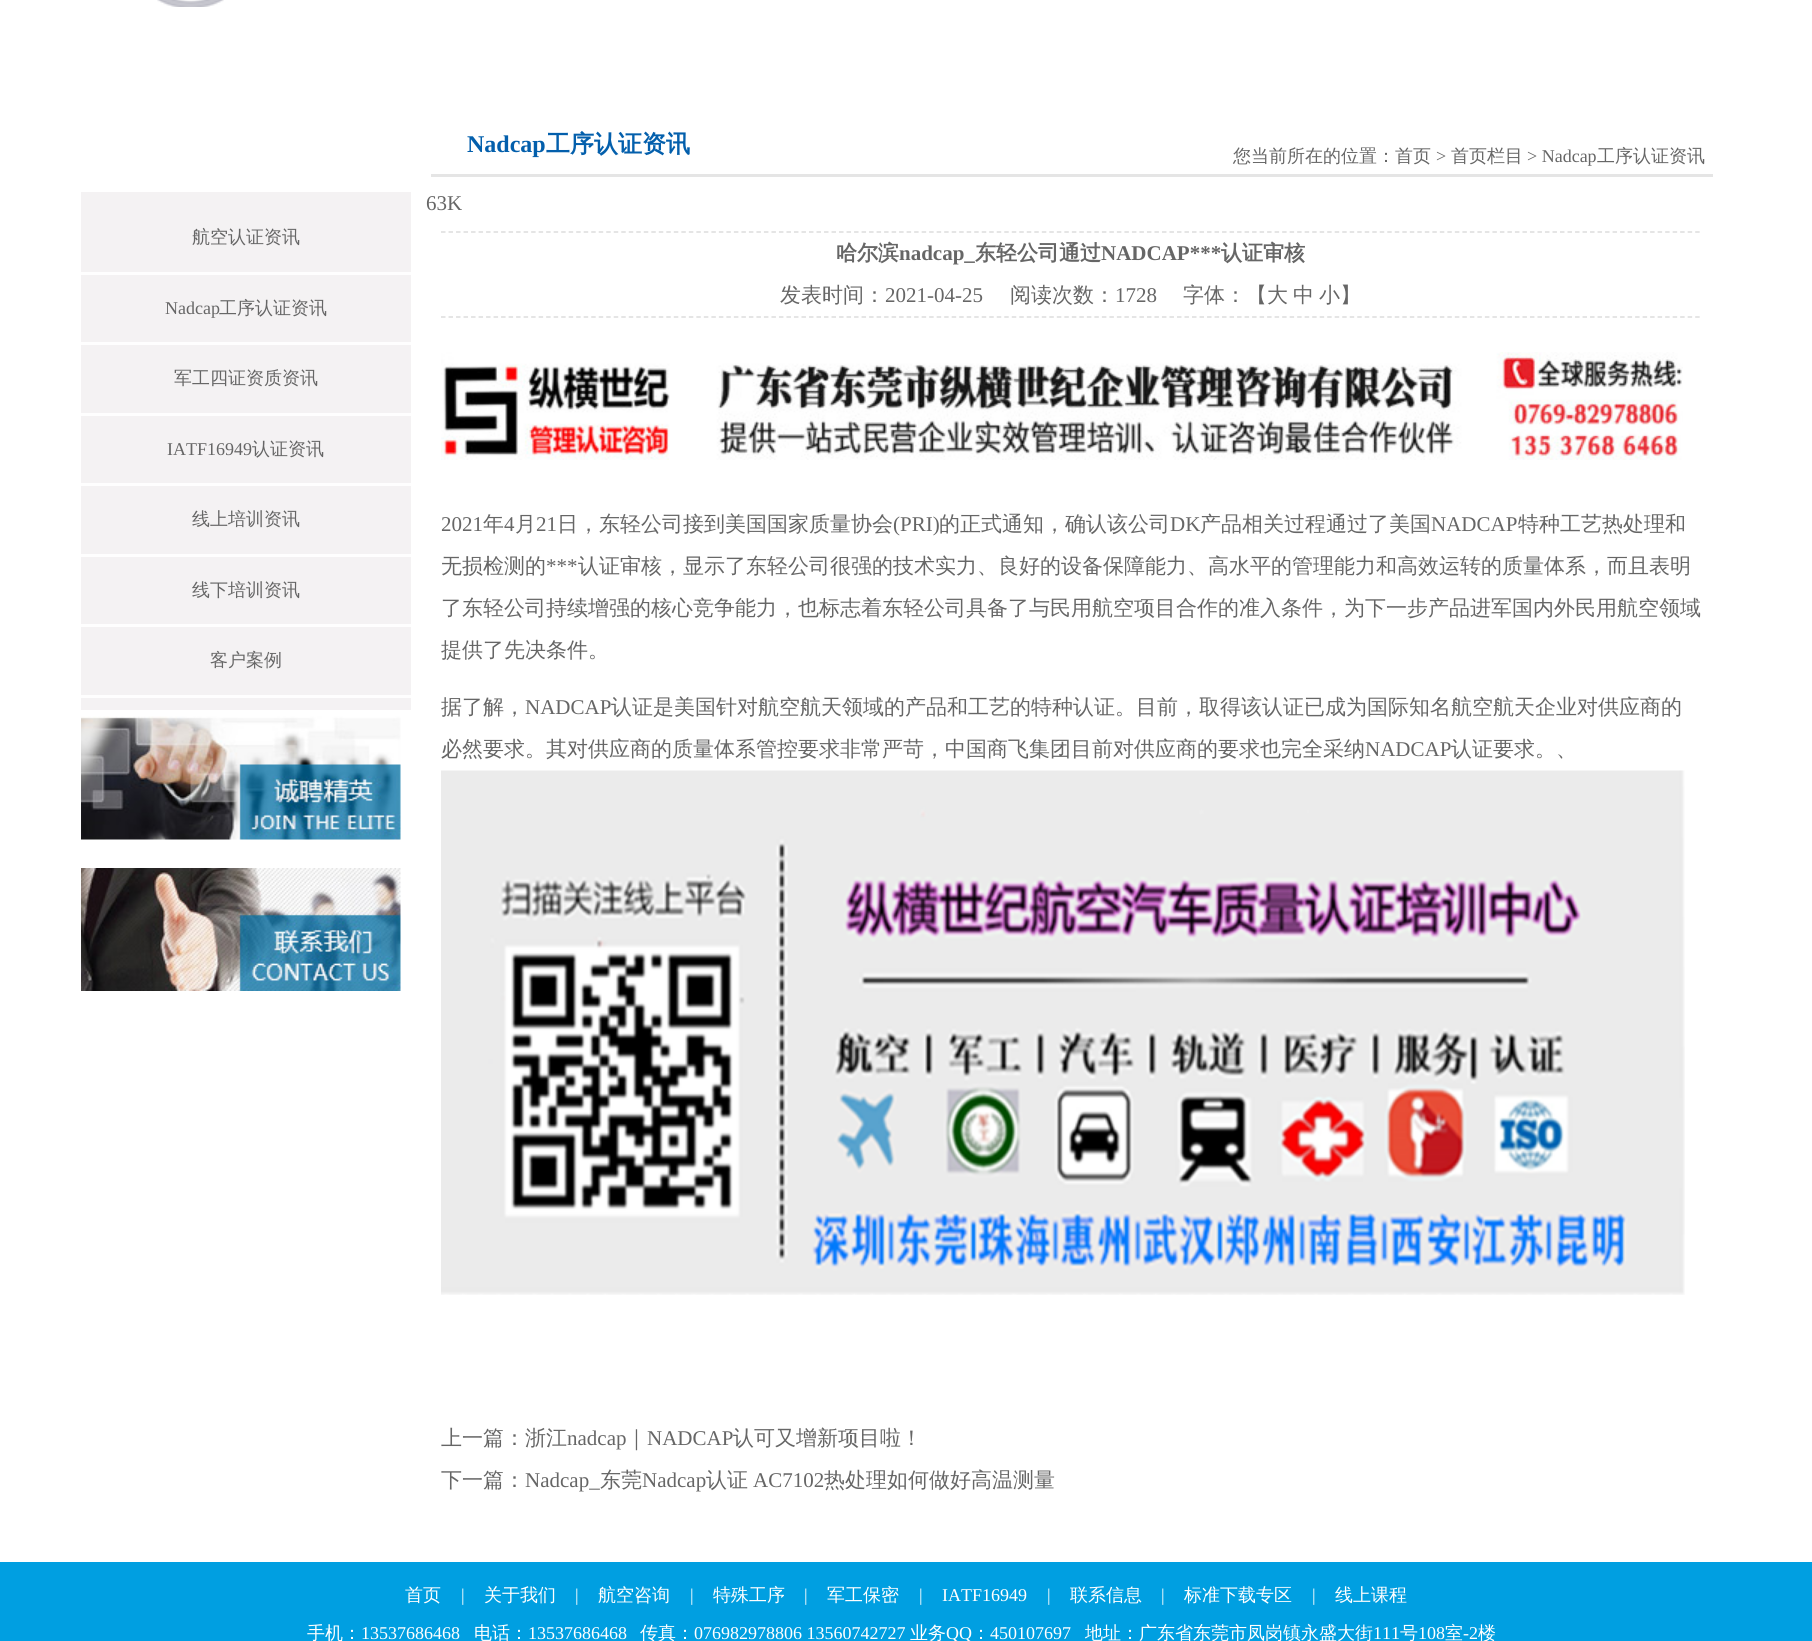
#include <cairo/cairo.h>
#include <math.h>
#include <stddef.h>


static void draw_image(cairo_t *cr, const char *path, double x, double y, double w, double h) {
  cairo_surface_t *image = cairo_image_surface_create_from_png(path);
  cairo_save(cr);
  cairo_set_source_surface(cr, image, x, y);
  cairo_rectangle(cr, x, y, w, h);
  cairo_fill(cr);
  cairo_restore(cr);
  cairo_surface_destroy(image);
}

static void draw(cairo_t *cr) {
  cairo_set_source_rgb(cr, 1, 1, 1);
  cairo_paint(cr);
  draw_image(cr, "images/1.png", 157, 0, 67, 7);
  cairo_set_source_rgb(cr, 244 / 255.0, 242 / 255.0, 243 / 255.0);
  cairo_rectangle(cr, 81, 192, 330, 518);
  cairo_fill(cr);
  cairo_set_source_rgb(cr, 254 / 255.0, 254 / 255.0, 254 / 255.0);
  cairo_rectangle(cr, 81, 272, 330, 3);
  cairo_fill(cr);
  cairo_rectangle(cr, 81, 342, 330, 3);
  cairo_fill(cr);
  cairo_rectangle(cr, 81, 413, 330, 3);
  cairo_fill(cr);
  cairo_rectangle(cr, 81, 483, 330, 3);
  cairo_fill(cr);
  cairo_rectangle(cr, 81, 554, 330, 3);
  cairo_fill(cr);
  cairo_rectangle(cr, 81, 624, 330, 3);
  cairo_fill(cr);
  cairo_rectangle(cr, 81, 695, 330, 3);
  cairo_fill(cr);
  draw_image(cr, "images/2.png", 81, 716, 320, 124);
  draw_image(cr, "images/3.png", 81, 868, 320, 123);
  cairo_set_source_rgb(cr, 229 / 255.0, 229 / 255.0, 229 / 255.0);
  cairo_rectangle(cr, 431, 174, 1282, 3);
  cairo_fill(cr);
  cairo_new_path(cr);
  cairo_move_to(cr, 441, 232);
  cairo_line_to(cr, 1701, 232);
  cairo_set_source_rgb(cr, 221 / 255.0, 221 / 255.0, 221 / 255.0);
  cairo_set_line_width(cr, 1.5);
  cairo_set_dash(cr, (double[]){4.5, 3.01}, 2, 0);
  cairo_stroke(cr);
  cairo_new_path(cr);
  cairo_move_to(cr, 441, 317);
  cairo_line_to(cr, 1701, 317);
  cairo_stroke(cr);
  draw_image(cr, "images/4.png", 441, 352, 1242, 108);
  draw_image(cr, "images/5.png", 441, 770, 1244, 525);
  cairo_set_source_rgb(cr, 0, 159 / 255.0, 225 / 255.0);
  cairo_rectangle(cr, 0, 1562, 1812, 79);
  cairo_fill(cr);
  cairo_select_font_face(cr, "WenQuanYi Zen Hei Medium", CAIRO_FONT_SLANT_NORMAL, CAIRO_FONT_WEIGHT_NORMAL);
  cairo_set_font_size(cr, 18);
  cairo_set_source_rgb(cr, 102 / 255.0, 102 / 255.0, 102 / 255.0);
  cairo_move_to(cr, 192, 243);
  cairo_show_text(cr, "航空认证资讯");
  cairo_select_font_face(cr, "Liberation Serif", CAIRO_FONT_SLANT_NORMAL, CAIRO_FONT_WEIGHT_NORMAL);
  cairo_move_to(cr, 165, 314);
  cairo_show_text(cr, "Nadcap");
  cairo_select_font_face(cr, "WenQuanYi Zen Hei Medium", CAIRO_FONT_SLANT_NORMAL, CAIRO_FONT_WEIGHT_NORMAL);
  cairo_move_to(cr, 219, 314);
  cairo_show_text(cr, "工序认证资讯");
  cairo_move_to(cr, 174, 384);
  cairo_show_text(cr, "军工四证资质资讯");
  cairo_select_font_face(cr, "Liberation Serif", CAIRO_FONT_SLANT_NORMAL, CAIRO_FONT_WEIGHT_NORMAL);
  cairo_move_to(cr, 167, 455);
  cairo_show_text(cr, "IATF16949");
  cairo_select_font_face(cr, "WenQuanYi Zen Hei Medium", CAIRO_FONT_SLANT_NORMAL, CAIRO_FONT_WEIGHT_NORMAL);
  cairo_move_to(cr, 252, 455);
  cairo_show_text(cr, "认证资讯");
  cairo_move_to(cr, 192, 525);
  cairo_show_text(cr, "线上培训资讯");
  cairo_move_to(cr, 192, 596);
  cairo_show_text(cr, "线下培训资讯");
  cairo_move_to(cr, 210, 666);
  cairo_show_text(cr, "客户案例");
  cairo_select_font_face(cr, "Liberation Serif", CAIRO_FONT_SLANT_NORMAL, CAIRO_FONT_WEIGHT_BOLD);
  cairo_set_font_size(cr, 24);
  cairo_set_source_rgb(cr, 3 / 255.0, 95 / 255.0, 172 / 255.0);
  cairo_move_to(cr, 467, 152);
  cairo_show_text(cr, "Nadcap");
  cairo_select_font_face(cr, "WenQuanYi Zen Hei", CAIRO_FONT_SLANT_NORMAL, CAIRO_FONT_WEIGHT_BOLD);
  cairo_move_to(cr, 546, 152);
  cairo_show_text(cr, "工序认证资讯");
  cairo_select_font_face(cr, "WenQuanYi Zen Hei Medium", CAIRO_FONT_SLANT_NORMAL, CAIRO_FONT_WEIGHT_NORMAL);
  cairo_set_font_size(cr, 18);
  cairo_set_source_rgb(cr, 102 / 255.0, 102 / 255.0, 102 / 255.0);
  cairo_move_to(cr, 1233, 162);
  cairo_show_text(cr, "您当前所在的位置：首页");
  cairo_select_font_face(cr, "Liberation Serif", CAIRO_FONT_SLANT_NORMAL, CAIRO_FONT_WEIGHT_NORMAL);
  cairo_move_to(cr, 1436, 162);
  cairo_show_text(cr, ">");
  cairo_select_font_face(cr, "WenQuanYi Zen Hei Medium", CAIRO_FONT_SLANT_NORMAL, CAIRO_FONT_WEIGHT_NORMAL);
  cairo_move_to(cr, 1451, 162);
  cairo_show_text(cr, "首页栏目");
  cairo_select_font_face(cr, "Liberation Serif", CAIRO_FONT_SLANT_NORMAL, CAIRO_FONT_WEIGHT_NORMAL);
  cairo_move_to(cr, 1527, 162);
  cairo_show_text(cr, "> Nadcap");
  cairo_select_font_face(cr, "WenQuanYi Zen Hei Medium", CAIRO_FONT_SLANT_NORMAL, CAIRO_FONT_WEIGHT_NORMAL);
  cairo_move_to(cr, 1597, 162);
  cairo_show_text(cr, "工序认证资讯");
  cairo_select_font_face(cr, "Liberation Serif", CAIRO_FONT_SLANT_NORMAL, CAIRO_FONT_WEIGHT_NORMAL);
  cairo_set_font_size(cr, 21);
  cairo_move_to(cr, 426, 210);
  cairo_show_text(cr, "63K");
  cairo_select_font_face(cr, "WenQuanYi Zen Hei", CAIRO_FONT_SLANT_NORMAL, CAIRO_FONT_WEIGHT_BOLD);
  cairo_move_to(cr, 836, 260);
  cairo_show_text(cr, "哈尔滨");
  cairo_select_font_face(cr, "Liberation Serif", CAIRO_FONT_SLANT_NORMAL, CAIRO_FONT_WEIGHT_BOLD);
  cairo_move_to(cr, 899, 260);
  cairo_show_text(cr, "nadcap_");
  cairo_select_font_face(cr, "WenQuanYi Zen Hei", CAIRO_FONT_SLANT_NORMAL, CAIRO_FONT_WEIGHT_BOLD);
  cairo_move_to(cr, 975, 260);
  cairo_show_text(cr, "东轻公司通过");
  cairo_select_font_face(cr, "Liberation Serif", CAIRO_FONT_SLANT_NORMAL, CAIRO_FONT_WEIGHT_BOLD);
  cairo_move_to(cr, 1101, 260);
  cairo_show_text(cr, "NADCAP***");
  cairo_select_font_face(cr, "WenQuanYi Zen Hei", CAIRO_FONT_SLANT_NORMAL, CAIRO_FONT_WEIGHT_BOLD);
  cairo_move_to(cr, 1221, 260);
  cairo_show_text(cr, "认证审核");
  cairo_select_font_face(cr, "WenQuanYi Zen Hei Medium", CAIRO_FONT_SLANT_NORMAL, CAIRO_FONT_WEIGHT_NORMAL);
  cairo_move_to(cr, 780, 302);
  cairo_show_text(cr, "发表时间：");
  cairo_select_font_face(cr, "Liberation Serif", CAIRO_FONT_SLANT_NORMAL, CAIRO_FONT_WEIGHT_NORMAL);
  cairo_move_to(cr, 885, 302);
  cairo_show_text(cr, "2021-04-25");
  cairo_select_font_face(cr, "WenQuanYi Zen Hei Medium", CAIRO_FONT_SLANT_NORMAL, CAIRO_FONT_WEIGHT_NORMAL);
  cairo_move_to(cr, 1010, 302);
  cairo_show_text(cr, "阅读次数：");
  cairo_select_font_face(cr, "Liberation Serif", CAIRO_FONT_SLANT_NORMAL, CAIRO_FONT_WEIGHT_NORMAL);
  cairo_move_to(cr, 1115, 302);
  cairo_show_text(cr, "1728");
  cairo_select_font_face(cr, "WenQuanYi Zen Hei Medium", CAIRO_FONT_SLANT_NORMAL, CAIRO_FONT_WEIGHT_NORMAL);
  cairo_move_to(cr, 1183, 302);
  cairo_show_text(cr, "字体：【大");
  cairo_move_to(cr, 1293, 302);
  cairo_show_text(cr, "中");
  cairo_move_to(cr, 1319, 302);
  cairo_show_text(cr, "小】");
  cairo_select_font_face(cr, "Liberation Serif", CAIRO_FONT_SLANT_NORMAL, CAIRO_FONT_WEIGHT_NORMAL);
  cairo_move_to(cr, 441, 531);
  cairo_show_text(cr, "2021");
  cairo_select_font_face(cr, "WenQuanYi Zen Hei Medium", CAIRO_FONT_SLANT_NORMAL, CAIRO_FONT_WEIGHT_NORMAL);
  cairo_move_to(cr, 483, 531);
  cairo_show_text(cr, "年");
  cairo_select_font_face(cr, "Liberation Serif", CAIRO_FONT_SLANT_NORMAL, CAIRO_FONT_WEIGHT_NORMAL);
  cairo_move_to(cr, 504, 531);
  cairo_show_text(cr, "4");
  cairo_select_font_face(cr, "WenQuanYi Zen Hei Medium", CAIRO_FONT_SLANT_NORMAL, CAIRO_FONT_WEIGHT_NORMAL);
  cairo_move_to(cr, 515, 531);
  cairo_show_text(cr, "月");
  cairo_select_font_face(cr, "Liberation Serif", CAIRO_FONT_SLANT_NORMAL, CAIRO_FONT_WEIGHT_NORMAL);
  cairo_move_to(cr, 536, 531);
  cairo_show_text(cr, "21");
  cairo_select_font_face(cr, "WenQuanYi Zen Hei Medium", CAIRO_FONT_SLANT_NORMAL, CAIRO_FONT_WEIGHT_NORMAL);
  cairo_move_to(cr, 557, 531);
  cairo_show_text(cr, "日，东轻公司接到美国国家质量协会");
  cairo_select_font_face(cr, "Liberation Serif", CAIRO_FONT_SLANT_NORMAL, CAIRO_FONT_WEIGHT_NORMAL);
  cairo_move_to(cr, 893, 531);
  cairo_show_text(cr, "(PRI)");
  cairo_select_font_face(cr, "WenQuanYi Zen Hei Medium", CAIRO_FONT_SLANT_NORMAL, CAIRO_FONT_WEIGHT_NORMAL);
  cairo_move_to(cr, 939, 531);
  cairo_show_text(cr, "的正式通知，确认该公司");
  cairo_select_font_face(cr, "Liberation Serif", CAIRO_FONT_SLANT_NORMAL, CAIRO_FONT_WEIGHT_NORMAL);
  cairo_move_to(cr, 1170, 531);
  cairo_show_text(cr, "DK");
  cairo_select_font_face(cr, "WenQuanYi Zen Hei Medium", CAIRO_FONT_SLANT_NORMAL, CAIRO_FONT_WEIGHT_NORMAL);
  cairo_move_to(cr, 1200, 531);
  cairo_show_text(cr, "产品相关过程通过了美国");
  cairo_select_font_face(cr, "Liberation Serif", CAIRO_FONT_SLANT_NORMAL, CAIRO_FONT_WEIGHT_NORMAL);
  cairo_move_to(cr, 1431, 531);
  cairo_show_text(cr, "NADCAP");
  cairo_select_font_face(cr, "WenQuanYi Zen Hei Medium", CAIRO_FONT_SLANT_NORMAL, CAIRO_FONT_WEIGHT_NORMAL);
  cairo_move_to(cr, 1518, 531);
  cairo_show_text(cr, "特种工艺热处理和");
  cairo_move_to(cr, 441, 573);
  cairo_show_text(cr, "无损检测的");
  cairo_select_font_face(cr, "Liberation Serif", CAIRO_FONT_SLANT_NORMAL, CAIRO_FONT_WEIGHT_NORMAL);
  cairo_move_to(cr, 546, 573);
  cairo_show_text(cr, "***");
  cairo_select_font_face(cr, "WenQuanYi Zen Hei Medium", CAIRO_FONT_SLANT_NORMAL, CAIRO_FONT_WEIGHT_NORMAL);
  cairo_move_to(cr, 578, 573);
  cairo_show_text(cr, "认证审核，显示了东轻公司很强的技术实力、良好的设备保障能力、高水平的管理能力和高效运转的质量体系，而且表明");
  cairo_move_to(cr, 441, 615);
  cairo_show_text(cr, "了东轻公司持续增强的核心竞争能力，也标志着东轻公司具备了与民用航空项目合作的准入条件，为下一步产品进军国内外民用航空领域");
  cairo_move_to(cr, 441, 657);
  cairo_show_text(cr, "提供了先决条件。");
  cairo_move_to(cr, 441, 714);
  cairo_show_text(cr, "据了解，");
  cairo_select_font_face(cr, "Liberation Serif", CAIRO_FONT_SLANT_NORMAL, CAIRO_FONT_WEIGHT_NORMAL);
  cairo_move_to(cr, 525, 714);
  cairo_show_text(cr, "NADCAP");
  cairo_select_font_face(cr, "WenQuanYi Zen Hei Medium", CAIRO_FONT_SLANT_NORMAL, CAIRO_FONT_WEIGHT_NORMAL);
  cairo_move_to(cr, 611, 714);
  cairo_show_text(cr, "认证是美国针对航空航天领域的产品和工艺的特种认证。目前，取得该认证已成为国际知名航空航天企业对供应商的");
  cairo_move_to(cr, 441, 756);
  cairo_show_text(cr, "必然要求。其对供应商的质量体系管控要求非常严苛，中国商飞集团目前对供应商的要求也完全采纳");
  cairo_select_font_face(cr, "Liberation Serif", CAIRO_FONT_SLANT_NORMAL, CAIRO_FONT_WEIGHT_NORMAL);
  cairo_move_to(cr, 1365, 756);
  cairo_show_text(cr, "NADCAP");
  cairo_select_font_face(cr, "WenQuanYi Zen Hei Medium", CAIRO_FONT_SLANT_NORMAL, CAIRO_FONT_WEIGHT_NORMAL);
  cairo_move_to(cr, 1451, 756);
  cairo_show_text(cr, "认证要求。、");
  cairo_move_to(cr, 441, 1445);
  cairo_show_text(cr, "上一篇：浙江");
  cairo_select_font_face(cr, "Liberation Serif", CAIRO_FONT_SLANT_NORMAL, CAIRO_FONT_WEIGHT_NORMAL);
  cairo_move_to(cr, 567, 1445);
  cairo_show_text(cr, "nadcap");
  cairo_select_font_face(cr, "WenQuanYi Zen Hei Medium", CAIRO_FONT_SLANT_NORMAL, CAIRO_FONT_WEIGHT_NORMAL);
  cairo_move_to(cr, 626, 1445);
  cairo_show_text(cr, "｜");
  cairo_select_font_face(cr, "Liberation Serif", CAIRO_FONT_SLANT_NORMAL, CAIRO_FONT_WEIGHT_NORMAL);
  cairo_move_to(cr, 647, 1445);
  cairo_show_text(cr, "NADCAP");
  cairo_select_font_face(cr, "WenQuanYi Zen Hei Medium", CAIRO_FONT_SLANT_NORMAL, CAIRO_FONT_WEIGHT_NORMAL);
  cairo_move_to(cr, 733, 1445);
  cairo_show_text(cr, "认可又增新项目啦！");
  cairo_move_to(cr, 441, 1487);
  cairo_show_text(cr, "下一篇：");
  cairo_select_font_face(cr, "Liberation Serif", CAIRO_FONT_SLANT_NORMAL, CAIRO_FONT_WEIGHT_NORMAL);
  cairo_move_to(cr, 525, 1487);
  cairo_show_text(cr, "Nadcap_");
  cairo_select_font_face(cr, "WenQuanYi Zen Hei Medium", CAIRO_FONT_SLANT_NORMAL, CAIRO_FONT_WEIGHT_NORMAL);
  cairo_move_to(cr, 600, 1487);
  cairo_show_text(cr, "东莞");
  cairo_select_font_face(cr, "Liberation Serif", CAIRO_FONT_SLANT_NORMAL, CAIRO_FONT_WEIGHT_NORMAL);
  cairo_move_to(cr, 642, 1487);
  cairo_show_text(cr, "Nadcap");
  cairo_select_font_face(cr, "WenQuanYi Zen Hei Medium", CAIRO_FONT_SLANT_NORMAL, CAIRO_FONT_WEIGHT_NORMAL);
  cairo_move_to(cr, 706, 1487);
  cairo_show_text(cr, "认证");
  cairo_select_font_face(cr, "Liberation Serif", CAIRO_FONT_SLANT_NORMAL, CAIRO_FONT_WEIGHT_NORMAL);
  cairo_move_to(cr, 753, 1487);
  cairo_show_text(cr, "AC7102");
  cairo_select_font_face(cr, "WenQuanYi Zen Hei Medium", CAIRO_FONT_SLANT_NORMAL, CAIRO_FONT_WEIGHT_NORMAL);
  cairo_move_to(cr, 824, 1487);
  cairo_show_text(cr, "热处理如何做好高温测量");
  cairo_set_font_size(cr, 18);
  cairo_set_source_rgb(cr, 1, 1, 1);
  cairo_move_to(cr, 405, 1601);
  cairo_show_text(cr, "首页");
  cairo_select_font_face(cr, "Liberation Serif", CAIRO_FONT_SLANT_NORMAL, CAIRO_FONT_WEIGHT_NORMAL);
  cairo_move_to(cr, 461, 1601);
  cairo_show_text(cr, "|");
  cairo_select_font_face(cr, "WenQuanYi Zen Hei Medium", CAIRO_FONT_SLANT_NORMAL, CAIRO_FONT_WEIGHT_NORMAL);
  cairo_move_to(cr, 484, 1601);
  cairo_show_text(cr, "关于我们");
  cairo_select_font_face(cr, "Liberation Serif", CAIRO_FONT_SLANT_NORMAL, CAIRO_FONT_WEIGHT_NORMAL);
  cairo_move_to(cr, 575, 1601);
  cairo_show_text(cr, "|");
  cairo_select_font_face(cr, "WenQuanYi Zen Hei Medium", CAIRO_FONT_SLANT_NORMAL, CAIRO_FONT_WEIGHT_NORMAL);
  cairo_move_to(cr, 598, 1601);
  cairo_show_text(cr, "航空咨询");
  cairo_select_font_face(cr, "Liberation Serif", CAIRO_FONT_SLANT_NORMAL, CAIRO_FONT_WEIGHT_NORMAL);
  cairo_move_to(cr, 690, 1601);
  cairo_show_text(cr, "|");
  cairo_select_font_face(cr, "WenQuanYi Zen Hei Medium", CAIRO_FONT_SLANT_NORMAL, CAIRO_FONT_WEIGHT_NORMAL);
  cairo_move_to(cr, 713, 1601);
  cairo_show_text(cr, "特殊工序");
  cairo_select_font_face(cr, "Liberation Serif", CAIRO_FONT_SLANT_NORMAL, CAIRO_FONT_WEIGHT_NORMAL);
  cairo_move_to(cr, 804, 1601);
  cairo_show_text(cr, "|");
  cairo_select_font_face(cr, "WenQuanYi Zen Hei Medium", CAIRO_FONT_SLANT_NORMAL, CAIRO_FONT_WEIGHT_NORMAL);
  cairo_move_to(cr, 827, 1601);
  cairo_show_text(cr, "军工保密");
  cairo_select_font_face(cr, "Liberation Serif", CAIRO_FONT_SLANT_NORMAL, CAIRO_FONT_WEIGHT_NORMAL);
  cairo_move_to(cr, 919, 1601);
  cairo_show_text(cr, "|");
  cairo_move_to(cr, 942, 1601);
  cairo_show_text(cr, "IATF16949");
  cairo_move_to(cr, 1047, 1601);
  cairo_show_text(cr, "|");
  cairo_select_font_face(cr, "WenQuanYi Zen Hei Medium", CAIRO_FONT_SLANT_NORMAL, CAIRO_FONT_WEIGHT_NORMAL);
  cairo_move_to(cr, 1070, 1601);
  cairo_show_text(cr, "联系信息");
  cairo_select_font_face(cr, "Liberation Serif", CAIRO_FONT_SLANT_NORMAL, CAIRO_FONT_WEIGHT_NORMAL);
  cairo_move_to(cr, 1161, 1601);
  cairo_show_text(cr, "|");
  cairo_select_font_face(cr, "WenQuanYi Zen Hei Medium", CAIRO_FONT_SLANT_NORMAL, CAIRO_FONT_WEIGHT_NORMAL);
  cairo_move_to(cr, 1184, 1601);
  cairo_show_text(cr, "标准下载专区");
  cairo_select_font_face(cr, "Liberation Serif", CAIRO_FONT_SLANT_NORMAL, CAIRO_FONT_WEIGHT_NORMAL);
  cairo_move_to(cr, 1312, 1601);
  cairo_show_text(cr, "|");
  cairo_select_font_face(cr, "WenQuanYi Zen Hei Medium", CAIRO_FONT_SLANT_NORMAL, CAIRO_FONT_WEIGHT_NORMAL);
  cairo_move_to(cr, 1335, 1601);
  cairo_show_text(cr, "线上课程");
  cairo_move_to(cr, 307, 1639);
  cairo_show_text(cr, "手机：");
  cairo_select_font_face(cr, "Liberation Serif", CAIRO_FONT_SLANT_NORMAL, CAIRO_FONT_WEIGHT_NORMAL);
  cairo_move_to(cr, 361, 1639);
  cairo_show_text(cr, "13537686468");
  cairo_select_font_face(cr, "WenQuanYi Zen Hei Medium", CAIRO_FONT_SLANT_NORMAL, CAIRO_FONT_WEIGHT_NORMAL);
  cairo_move_to(cr, 474, 1639);
  cairo_show_text(cr, "电话：");
  cairo_select_font_face(cr, "Liberation Serif", CAIRO_FONT_SLANT_NORMAL, CAIRO_FONT_WEIGHT_NORMAL);
  cairo_move_to(cr, 528, 1639);
  cairo_show_text(cr, "13537686468");
  cairo_select_font_face(cr, "WenQuanYi Zen Hei Medium", CAIRO_FONT_SLANT_NORMAL, CAIRO_FONT_WEIGHT_NORMAL);
  cairo_move_to(cr, 640, 1639);
  cairo_show_text(cr, "传真：");
  cairo_select_font_face(cr, "Liberation Serif", CAIRO_FONT_SLANT_NORMAL, CAIRO_FONT_WEIGHT_NORMAL);
  cairo_move_to(cr, 694, 1639);
  cairo_show_text(cr, "076982978806 13560742727");
  cairo_select_font_face(cr, "WenQuanYi Zen Hei Medium", CAIRO_FONT_SLANT_NORMAL, CAIRO_FONT_WEIGHT_NORMAL);
  cairo_move_to(cr, 910, 1639);
  cairo_show_text(cr, "业务");
  cairo_select_font_face(cr, "Liberation Serif", CAIRO_FONT_SLANT_NORMAL, CAIRO_FONT_WEIGHT_NORMAL);
  cairo_move_to(cr, 946, 1639);
  cairo_show_text(cr, "QQ");
  cairo_select_font_face(cr, "WenQuanYi Zen Hei Medium", CAIRO_FONT_SLANT_NORMAL, CAIRO_FONT_WEIGHT_NORMAL);
  cairo_move_to(cr, 972, 1639);
  cairo_show_text(cr, "：");
  cairo_select_font_face(cr, "Liberation Serif", CAIRO_FONT_SLANT_NORMAL, CAIRO_FONT_WEIGHT_NORMAL);
  cairo_move_to(cr, 990, 1639);
  cairo_show_text(cr, "450107697");
  cairo_select_font_face(cr, "WenQuanYi Zen Hei Medium", CAIRO_FONT_SLANT_NORMAL, CAIRO_FONT_WEIGHT_NORMAL);
  cairo_move_to(cr, 1085, 1639);
  cairo_show_text(cr, "地址：广东省东莞市凤岗镇永盛大街");
  cairo_select_font_face(cr, "Liberation Serif", CAIRO_FONT_SLANT_NORMAL, CAIRO_FONT_WEIGHT_NORMAL);
  cairo_move_to(cr, 1373, 1639);
  cairo_show_text(cr, "111");
  cairo_select_font_face(cr, "WenQuanYi Zen Hei Medium", CAIRO_FONT_SLANT_NORMAL, CAIRO_FONT_WEIGHT_NORMAL);
  cairo_move_to(cr, 1400, 1639);
  cairo_show_text(cr, "号");
  cairo_select_font_face(cr, "Liberation Serif", CAIRO_FONT_SLANT_NORMAL, CAIRO_FONT_WEIGHT_NORMAL);
  cairo_move_to(cr, 1418, 1639);
  cairo_show_text(cr, "108");
  cairo_select_font_face(cr, "WenQuanYi Zen Hei Medium", CAIRO_FONT_SLANT_NORMAL, CAIRO_FONT_WEIGHT_NORMAL);
  cairo_move_to(cr, 1445, 1639);
  cairo_show_text(cr, "室");
  cairo_select_font_face(cr, "Liberation Serif", CAIRO_FONT_SLANT_NORMAL, CAIRO_FONT_WEIGHT_NORMAL);
  cairo_move_to(cr, 1463, 1639);
  cairo_show_text(cr, "-2");
  cairo_select_font_face(cr, "WenQuanYi Zen Hei Medium", CAIRO_FONT_SLANT_NORMAL, CAIRO_FONT_WEIGHT_NORMAL);
  cairo_move_to(cr, 1478, 1639);
  cairo_show_text(cr, "楼");
}

int main(void) {
  cairo_surface_t *surface = cairo_image_surface_create(CAIRO_FORMAT_RGB24, 1812, 1641);
  cairo_t *cr = cairo_create(surface);
  cairo_font_options_t *options = cairo_font_options_create();
  cairo_font_options_set_hint_metrics(options, CAIRO_HINT_METRICS_OFF);
  cairo_font_options_set_hint_style(options, CAIRO_HINT_STYLE_NONE);
  cairo_set_font_options(cr, options);
  cairo_set_miter_limit(cr, 4);
  draw(cr);
  cairo_surface_write_to_png(surface, "out.png");
  cairo_font_options_destroy(options);
  cairo_destroy(cr);
  cairo_surface_destroy(surface);
  return 0;
}
